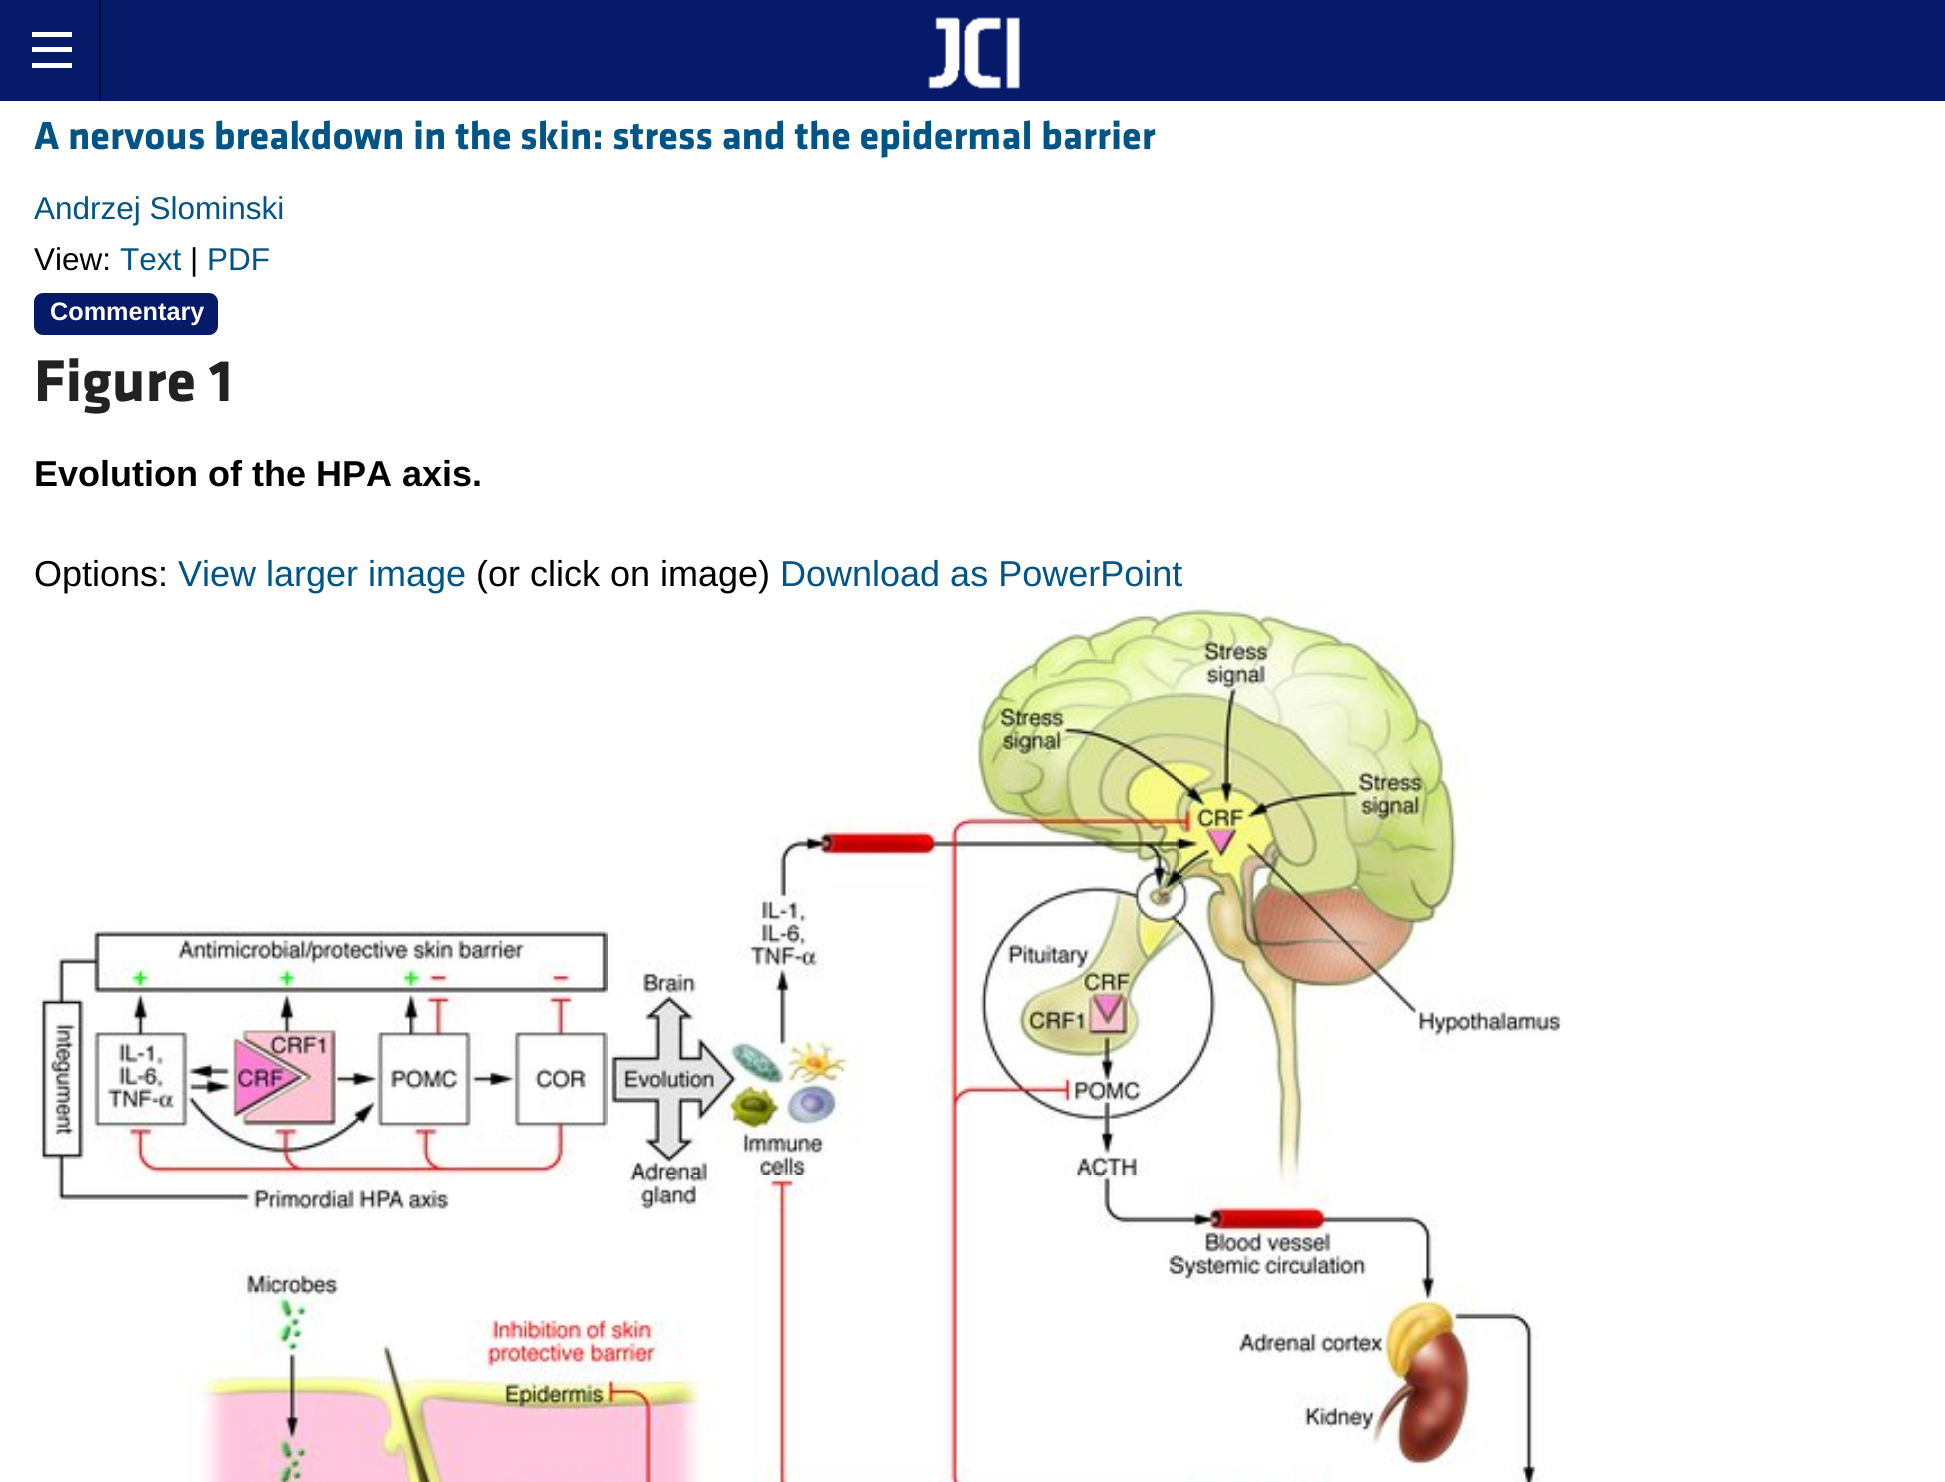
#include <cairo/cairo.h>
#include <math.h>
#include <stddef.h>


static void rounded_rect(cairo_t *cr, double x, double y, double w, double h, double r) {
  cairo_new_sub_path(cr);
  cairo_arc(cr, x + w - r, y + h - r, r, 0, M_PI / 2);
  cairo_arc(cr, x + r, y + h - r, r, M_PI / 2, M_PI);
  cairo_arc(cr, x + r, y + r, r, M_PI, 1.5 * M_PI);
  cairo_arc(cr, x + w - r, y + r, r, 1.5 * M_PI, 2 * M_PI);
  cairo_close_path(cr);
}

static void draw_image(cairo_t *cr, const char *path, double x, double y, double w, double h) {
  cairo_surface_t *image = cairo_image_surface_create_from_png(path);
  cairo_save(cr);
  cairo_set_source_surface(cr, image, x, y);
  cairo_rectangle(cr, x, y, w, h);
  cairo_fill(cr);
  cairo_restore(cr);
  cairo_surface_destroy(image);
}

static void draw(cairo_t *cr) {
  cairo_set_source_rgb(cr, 1, 1, 1);
  cairo_paint(cr);
  cairo_set_source_rgb(cr, 7 / 255.0, 26 / 255.0, 105 / 255.0);
  cairo_rectangle(cr, 0, 0, 1945, 101);
  cairo_fill(cr);
  cairo_set_source_rgb(cr, 4 / 255.0, 13 / 255.0, 53 / 255.0);
  cairo_rectangle(cr, 99, 0, 2, 101);
  cairo_fill(cr);
  cairo_set_source_rgb(cr, 1, 1, 1);
  cairo_rectangle(cr, 32, 63, 40, 5);
  cairo_fill(cr);
  cairo_rectangle(cr, 32, 47, 40, 5);
  cairo_fill(cr);
  cairo_rectangle(cr, 32, 32, 40, 5);
  cairo_fill(cr);
  draw_image(cr, "images/1.png", 928, 17, 92, 72);
  cairo_set_source_rgb(cr, 7 / 255.0, 26 / 255.0, 105 / 255.0);
  rounded_rect(cr, 34, 293, 184, 42, 9);
  cairo_fill(cr);
  draw_image(cr, "images/2.png", 34, 601, 1530, 881);
  cairo_select_font_face(cr, "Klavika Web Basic", CAIRO_FONT_SLANT_NORMAL, CAIRO_FONT_WEIGHT_BOLD);
  cairo_set_font_size(cr, 40.5);
  cairo_set_source_rgb(cr, 1 / 255.0, 84 / 255.0, 134 / 255.0);
  cairo_move_to(cr, 34, 149);
  cairo_show_text(cr, "A nervous breakdown in the skin: stress and the epidermal barrier");
  cairo_select_font_face(cr, "Liberation Sans", CAIRO_FONT_SLANT_NORMAL, CAIRO_FONT_WEIGHT_NORMAL);
  cairo_set_font_size(cr, 31.5);
  cairo_move_to(cr, 34, 219);
  cairo_show_text(cr, "Andrzej Slominski");
  cairo_set_source_rgb(cr, 0, 0, 0);
  cairo_move_to(cr, 34, 270);
  cairo_show_text(cr, "View:");
  cairo_set_source_rgb(cr, 1 / 255.0, 84 / 255.0, 134 / 255.0);
  cairo_move_to(cr, 120, 270);
  cairo_show_text(cr, "Text");
  cairo_set_source_rgb(cr, 0, 0, 0);
  cairo_move_to(cr, 190, 270);
  cairo_show_text(cr, "|");
  cairo_set_source_rgb(cr, 1 / 255.0, 84 / 255.0, 134 / 255.0);
  cairo_move_to(cr, 207, 270);
  cairo_show_text(cr, "PDF");
  cairo_select_font_face(cr, "Liberation Sans", CAIRO_FONT_SLANT_NORMAL, CAIRO_FONT_WEIGHT_BOLD);
  cairo_set_font_size(cr, 25.25);
  cairo_set_source_rgb(cr, 1, 1, 1);
  cairo_move_to(cr, 50, 320);
  cairo_show_text(cr, "Commentary");
  cairo_select_font_face(cr, "Klavika Web Basic", CAIRO_FONT_SLANT_NORMAL, CAIRO_FONT_WEIGHT_BOLD);
  cairo_set_font_size(cr, 61);
  cairo_set_source_rgb(cr, 34 / 255.0, 34 / 255.0, 34 / 255.0);
  cairo_move_to(cr, 34, 401);
  cairo_show_text(cr, "Figure 1");
  cairo_select_font_face(cr, "Liberation Sans", CAIRO_FONT_SLANT_NORMAL, CAIRO_FONT_WEIGHT_BOLD);
  cairo_set_font_size(cr, 36);
  cairo_set_source_rgb(cr, 0, 0, 0);
  cairo_move_to(cr, 34, 486);
  cairo_show_text(cr, "Evolution of the HPA axis.");
  cairo_select_font_face(cr, "Liberation Sans", CAIRO_FONT_SLANT_NORMAL, CAIRO_FONT_WEIGHT_NORMAL);
  cairo_move_to(cr, 34, 586);
  cairo_show_text(cr, "Options:");
  cairo_set_source_rgb(cr, 1 / 255.0, 84 / 255.0, 134 / 255.0);
  cairo_move_to(cr, 178, 586);
  cairo_show_text(cr, "View larger image");
  cairo_set_source_rgb(cr, 0, 0, 0);
  cairo_move_to(cr, 476, 586);
  cairo_show_text(cr, "(or click on image)");
  cairo_set_source_rgb(cr, 1 / 255.0, 84 / 255.0, 134 / 255.0);
  cairo_move_to(cr, 780, 586);
  cairo_show_text(cr, "Download as PowerPoint");
}

int main(void) {
  cairo_surface_t *surface = cairo_image_surface_create(CAIRO_FORMAT_RGB24, 1945, 1482);
  cairo_t *cr = cairo_create(surface);
  cairo_font_options_t *options = cairo_font_options_create();
  cairo_font_options_set_hint_metrics(options, CAIRO_HINT_METRICS_OFF);
  cairo_font_options_set_hint_style(options, CAIRO_HINT_STYLE_NONE);
  cairo_set_font_options(cr, options);
  cairo_set_miter_limit(cr, 4);
  draw(cr);
  cairo_surface_write_to_png(surface, "out.png");
  cairo_font_options_destroy(options);
  cairo_destroy(cr);
  cairo_surface_destroy(surface);
  return 0;
}
